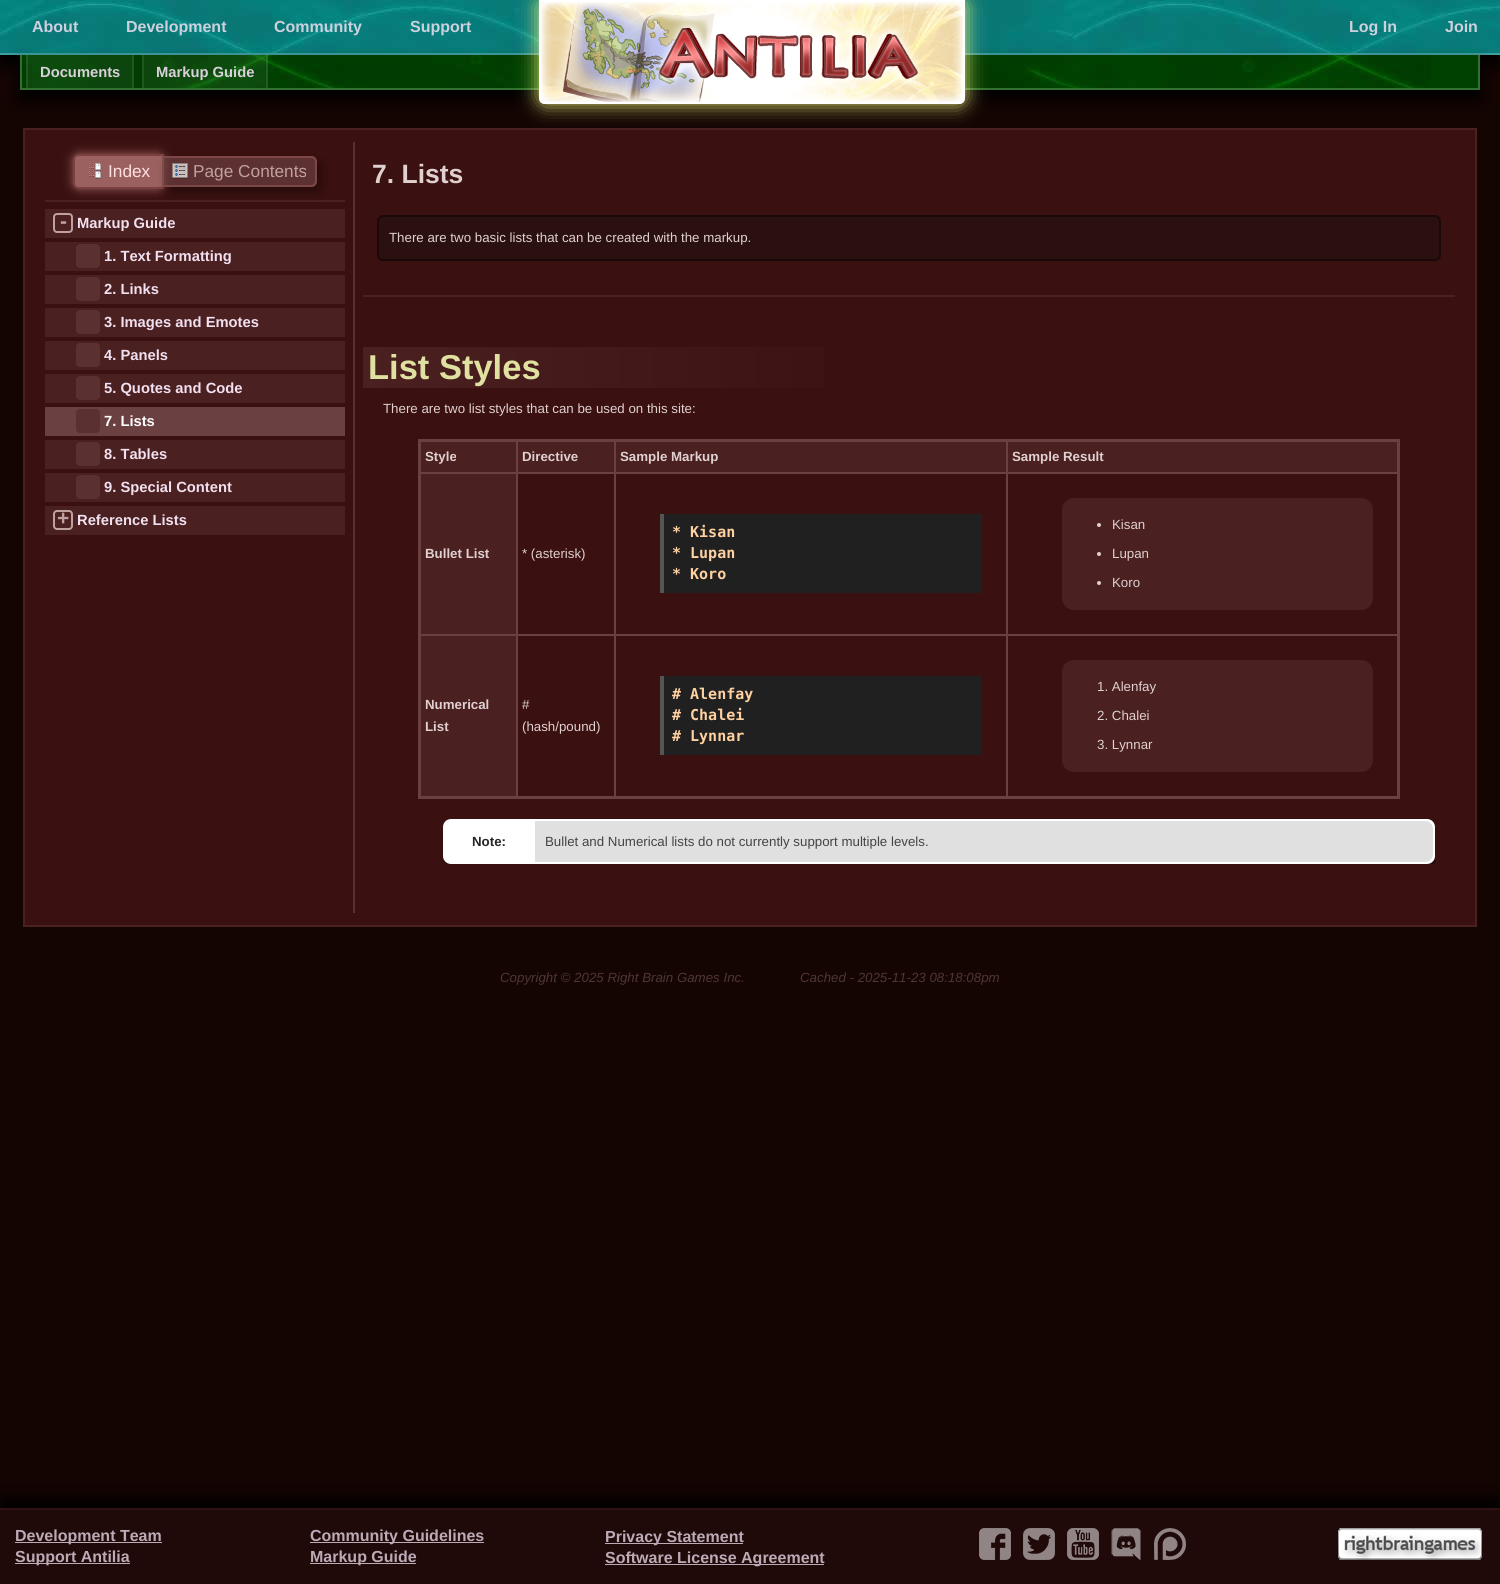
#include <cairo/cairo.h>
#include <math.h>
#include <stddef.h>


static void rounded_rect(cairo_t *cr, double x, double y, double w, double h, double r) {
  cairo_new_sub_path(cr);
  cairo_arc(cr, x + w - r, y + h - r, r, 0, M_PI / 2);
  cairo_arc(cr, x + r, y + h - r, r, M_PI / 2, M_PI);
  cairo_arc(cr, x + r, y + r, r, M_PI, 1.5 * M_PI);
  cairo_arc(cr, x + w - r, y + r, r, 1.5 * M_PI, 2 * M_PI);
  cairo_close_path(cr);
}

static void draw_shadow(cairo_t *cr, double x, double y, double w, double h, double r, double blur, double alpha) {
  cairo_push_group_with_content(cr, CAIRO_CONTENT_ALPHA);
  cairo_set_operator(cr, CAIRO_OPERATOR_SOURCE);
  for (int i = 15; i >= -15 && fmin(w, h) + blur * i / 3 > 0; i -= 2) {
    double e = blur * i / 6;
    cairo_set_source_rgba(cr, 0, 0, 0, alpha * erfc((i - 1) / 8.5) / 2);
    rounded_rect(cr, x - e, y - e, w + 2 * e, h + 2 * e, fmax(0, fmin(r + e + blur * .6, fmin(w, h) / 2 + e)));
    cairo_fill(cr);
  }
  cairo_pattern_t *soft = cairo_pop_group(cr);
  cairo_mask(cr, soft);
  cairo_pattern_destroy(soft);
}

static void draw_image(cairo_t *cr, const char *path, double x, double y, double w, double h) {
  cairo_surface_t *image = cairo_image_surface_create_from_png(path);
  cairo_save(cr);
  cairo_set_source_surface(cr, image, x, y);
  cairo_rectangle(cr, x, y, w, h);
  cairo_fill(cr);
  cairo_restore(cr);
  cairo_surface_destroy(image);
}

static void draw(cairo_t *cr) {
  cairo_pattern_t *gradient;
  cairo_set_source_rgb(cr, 20 / 255.0, 4 / 255.0, 2 / 255.0);
  cairo_paint(cr);
  cairo_set_source_rgb(cr, 0, 0, 0);
  draw_shadow(cr, 0, 10, 1500, 55, 0, 7.5, 1);
  draw_image(cr, "images/1.png", 0, 0, 1500, 53);
  cairo_set_source_rgb(cr, 64 / 255.0, 160 / 255.0, 160 / 255.0);
  cairo_rectangle(cr, 0, 53, 1500, 2);
  cairo_fill(cr);
  cairo_set_source_rgb(cr, 0, 0, 0);
  draw_shadow(cr, 20, 65, 1460, 35, 0, 7.5, 1);
  draw_image(cr, "images/3.png", 22, 55, 1409, 33);
  cairo_set_source_rgb(cr, 48 / 255.0, 112 / 255.0, 48 / 255.0);
  cairo_rectangle(cr, 1478, 55, 2, 35);
  cairo_fill(cr);
  cairo_rectangle(cr, 20, 88, 1460, 2);
  cairo_fill(cr);
  cairo_set_source_rgb(cr, 59 / 255.0, 16 / 255.0, 16 / 255.0);
  cairo_rectangle(cr, 24, 129, 1452, 797);
  cairo_fill_preserve(cr);
  cairo_set_source_rgb(cr, 75 / 255.0, 32 / 255.0, 32 / 255.0);
  cairo_stroke(cr);
  cairo_set_source_rgb(cr, 1, 1, 128 / 255.0);
  draw_shadow(cr, 539, 0, 426, 104, 6, 10, 0.9);
  draw_image(cr, "images/2.png", 539, 2, 426, 102);
  cairo_new_path(cr);
  cairo_move_to(cr, 540, 1);
  cairo_line_to(cr, 964, 1);
  cairo_line_to(cr, 964, 98);
  cairo_curve_to(cr, 964, 101, 962, 103, 959, 103);
  cairo_line_to(cr, 545, 103);
  cairo_curve_to(cr, 542, 103, 540, 101, 540, 98);
  cairo_close_path(cr);
  cairo_set_source_rgb(cr, 1, 1, 1);
  cairo_stroke(cr);
  cairo_set_source_rgb(cr, 0, 64 / 255.0, 0);
  cairo_rectangle(cr, 1431, 55, 47, 33);
  cairo_fill(cr);
  cairo_set_source_rgb(cr, 48 / 255.0, 112 / 255.0, 48 / 255.0);
  cairo_rectangle(cr, 20, 55, 2, 35);
  cairo_fill(cr);
  cairo_set_source_rgba(cr, 1, 1, 1, 0.05);
  cairo_rectangle(cr, 26, 55, 106, 33);
  cairo_fill(cr);
  cairo_set_source_rgb(cr, 35 / 255.0, 87 / 255.0, 34 / 255.0);
  cairo_rectangle(cr, 132, 55, 2, 33);
  cairo_fill(cr);
  cairo_set_source_rgba(cr, 1, 1, 1, 0.09);
  cairo_rectangle(cr, 26, 55, 2, 33);
  cairo_fill(cr);
  cairo_set_source_rgba(cr, 1, 1, 1, 0.05);
  cairo_rectangle(cr, 144, 55, 124, 33);
  cairo_fill(cr);
  cairo_set_source_rgba(cr, 1, 1, 1, 0.09);
  cairo_rectangle(cr, 266, 55, 2, 33);
  cairo_fill(cr);
  cairo_set_source_rgb(cr, 35 / 255.0, 87 / 255.0, 34 / 255.0);
  cairo_rectangle(cr, 142, 55, 2, 33);
  cairo_fill(cr);
  cairo_set_source_rgb(cr, 91 / 255.0, 48 / 255.0, 48 / 255.0);
  cairo_rectangle(cr, 353, 142, 2, 771);
  cairo_fill(cr);
  cairo_set_source_rgb(cr, 155 / 255.0, 96 / 255.0, 96 / 255.0);
  draw_shadow(cr, 73, 154, 91, 35, 6, 5, 1);
  cairo_set_source_rgb(cr, 155 / 255.0, 96 / 255.0, 96 / 255.0);
  cairo_new_path(cr);
  cairo_move_to(cr, 79, 155);
  cairo_line_to(cr, 163, 155);
  cairo_line_to(cr, 163, 188);
  cairo_line_to(cr, 79, 188);
  cairo_curve_to(cr, 76, 188, 74, 186, 74, 183);
  cairo_line_to(cr, 74, 160);
  cairo_curve_to(cr, 74, 157, 76, 155, 79, 155);
  cairo_close_path(cr);
  cairo_fill_preserve(cr);
  cairo_set_source_rgb(cr, 123 / 255.0, 64 / 255.0, 64 / 255.0);
  cairo_stroke(cr);
  draw_image(cr, "images/4.png", 89, 163, 12, 16);
  cairo_set_source_rgb(cr, 75 / 255.0, 32 / 255.0, 32 / 255.0);
  cairo_rectangle(cr, 45, 200, 300, 2);
  cairo_fill(cr);
  cairo_save(cr);
  cairo_set_fill_rule(cr, CAIRO_FILL_RULE_EVEN_ODD);
  cairo_new_path(cr);
  cairo_move_to(cr, 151, 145);
  cairo_line_to(cr, 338, 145);
  cairo_line_to(cr, 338, 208);
  cairo_line_to(cr, 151, 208);
  cairo_close_path(cr);
  cairo_move_to(cr, 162, 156);
  cairo_line_to(cr, 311, 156);
  cairo_curve_to(cr, 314.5, 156, 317, 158.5, 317, 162);
  cairo_line_to(cr, 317, 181);
  cairo_curve_to(cr, 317, 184.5, 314.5, 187, 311, 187);
  cairo_line_to(cr, 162, 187);
  cairo_close_path(cr);
  cairo_clip(cr);
  cairo_set_source_rgb(cr, 0, 0, 0);
  draw_shadow(cr, 167, 161, 155, 31, 6, 5, 0.35);
  cairo_restore(cr);
  cairo_set_source_rgba(cr, 107 / 255.0, 64 / 255.0, 64 / 255.0, 0.7);
  cairo_new_path(cr);
  cairo_move_to(cr, 162, 156);
  cairo_line_to(cr, 311, 156);
  cairo_curve_to(cr, 314.5, 156, 317, 158.5, 317, 162);
  cairo_line_to(cr, 317, 181);
  cairo_curve_to(cr, 317, 184.5, 314.5, 187, 311, 187);
  cairo_line_to(cr, 162, 187);
  cairo_close_path(cr);
  cairo_fill(cr);
  cairo_new_path(cr);
  cairo_move_to(cr, 163, 157);
  cairo_line_to(cr, 311, 157);
  cairo_curve_to(cr, 314, 157, 316, 159, 316, 162);
  cairo_line_to(cr, 316, 181);
  cairo_curve_to(cr, 316, 184, 314, 186, 311, 186);
  cairo_line_to(cr, 163, 186);
  cairo_close_path(cr);
  cairo_set_source_rgba(cr, 139 / 255.0, 80 / 255.0, 80 / 255.0, 0.7);
  cairo_stroke(cr);
  draw_image(cr, "images/5.png", 172, 163, 16, 16);
  cairo_set_source_rgb(cr, 75 / 255.0, 32 / 255.0, 32 / 255.0);
  cairo_rectangle(cr, 45, 209, 300, 29);
  cairo_fill(cr);
  rounded_rect(cr, 54, 214, 18, 18, 3);
  cairo_set_source_rgb(cr, 192 / 255.0, 160 / 255.0, 160 / 255.0);
  cairo_stroke(cr);
  cairo_set_source_rgb(cr, 75 / 255.0, 32 / 255.0, 32 / 255.0);
  cairo_rectangle(cr, 45, 242, 300, 29);
  cairo_fill(cr);
  cairo_set_source_rgb(cr, 91 / 255.0, 48 / 255.0, 48 / 255.0);
  rounded_rect(cr, 76, 244, 24, 24, 4);
  cairo_fill(cr);
  cairo_set_source_rgb(cr, 75 / 255.0, 32 / 255.0, 32 / 255.0);
  cairo_rectangle(cr, 45, 275, 300, 29);
  cairo_fill(cr);
  cairo_set_source_rgb(cr, 91 / 255.0, 48 / 255.0, 48 / 255.0);
  rounded_rect(cr, 76, 277, 24, 24, 4);
  cairo_fill(cr);
  cairo_set_source_rgb(cr, 75 / 255.0, 32 / 255.0, 32 / 255.0);
  cairo_rectangle(cr, 45, 308, 300, 29);
  cairo_fill(cr);
  cairo_set_source_rgb(cr, 91 / 255.0, 48 / 255.0, 48 / 255.0);
  rounded_rect(cr, 76, 310, 24, 24, 4);
  cairo_fill(cr);
  cairo_set_source_rgb(cr, 75 / 255.0, 32 / 255.0, 32 / 255.0);
  cairo_rectangle(cr, 45, 341, 300, 29);
  cairo_fill(cr);
  cairo_set_source_rgb(cr, 91 / 255.0, 48 / 255.0, 48 / 255.0);
  rounded_rect(cr, 76, 343, 24, 24, 4);
  cairo_fill(cr);
  cairo_set_source_rgb(cr, 75 / 255.0, 32 / 255.0, 32 / 255.0);
  cairo_rectangle(cr, 45, 374, 300, 29);
  cairo_fill(cr);
  cairo_set_source_rgb(cr, 91 / 255.0, 48 / 255.0, 48 / 255.0);
  rounded_rect(cr, 76, 376, 24, 24, 4);
  cairo_fill(cr);
  cairo_set_source_rgb(cr, 107 / 255.0, 64 / 255.0, 64 / 255.0);
  cairo_rectangle(cr, 45, 407, 300, 29);
  cairo_fill(cr);
  cairo_set_source_rgb(cr, 91 / 255.0, 48 / 255.0, 48 / 255.0);
  rounded_rect(cr, 76, 409, 24, 24, 4);
  cairo_fill(cr);
  cairo_set_source_rgb(cr, 75 / 255.0, 32 / 255.0, 32 / 255.0);
  cairo_rectangle(cr, 45, 440, 300, 29);
  cairo_fill(cr);
  cairo_set_source_rgb(cr, 91 / 255.0, 48 / 255.0, 48 / 255.0);
  rounded_rect(cr, 76, 442, 24, 24, 4);
  cairo_fill(cr);
  cairo_set_source_rgb(cr, 75 / 255.0, 32 / 255.0, 32 / 255.0);
  cairo_rectangle(cr, 45, 473, 300, 29);
  cairo_fill(cr);
  cairo_set_source_rgb(cr, 91 / 255.0, 48 / 255.0, 48 / 255.0);
  rounded_rect(cr, 76, 475, 24, 24, 4);
  cairo_fill(cr);
  cairo_set_source_rgb(cr, 75 / 255.0, 32 / 255.0, 32 / 255.0);
  cairo_rectangle(cr, 45, 506, 300, 29);
  cairo_fill(cr);
  rounded_rect(cr, 54, 511, 18, 18, 3);
  cairo_set_source_rgb(cr, 192 / 255.0, 160 / 255.0, 160 / 255.0);
  cairo_stroke(cr);
  cairo_set_source_rgb(cr, 43 / 255.0, 16 / 255.0, 16 / 255.0);
  rounded_rect(cr, 378, 216, 1062, 44, 5);
  cairo_fill_preserve(cr);
  cairo_set_source_rgb(cr, 27 / 255.0, 8 / 255.0, 8 / 255.0);
  cairo_stroke(cr);
  cairo_set_source_rgb(cr, 75 / 255.0, 32 / 255.0, 32 / 255.0);
  cairo_rectangle(cr, 363, 295, 1092, 2);
  cairo_fill(cr);
  gradient = cairo_pattern_create_linear(363, 368, 1455, 367);
  cairo_pattern_add_color_stop_rgba(gradient, 0, 75 / 255.0, 32 / 255.0, 32 / 255.0, 1);
  cairo_pattern_add_color_stop_rgba(gradient, 0.5, 59 / 255.0, 16 / 255.0, 16 / 255.0, 1);
  cairo_pattern_add_color_stop_rgba(gradient, 1, 59 / 255.0, 16 / 255.0, 16 / 255.0, 1);
  cairo_set_source(cr, gradient);
  cairo_pattern_destroy(gradient);
  cairo_rectangle(cr, 363, 347, 461, 41);
  cairo_fill(cr);
  cairo_rectangle(cr, 419, 440, 980, 358);
  cairo_set_source_rgb(cr, 107 / 255.0, 64 / 255.0, 64 / 255.0);
  cairo_stroke(cr);
  cairo_set_source_rgb(cr, 75 / 255.0, 32 / 255.0, 32 / 255.0);
  cairo_rectangle(cr, 420.5, 441.5, 96, 31);
  cairo_fill_preserve(cr);
  cairo_set_source_rgb(cr, 107 / 255.0, 64 / 255.0, 64 / 255.0);
  cairo_set_line_width(cr, 1);
  cairo_stroke(cr);
  cairo_set_source_rgb(cr, 75 / 255.0, 32 / 255.0, 32 / 255.0);
  cairo_rectangle(cr, 517.5, 441.5, 97, 31);
  cairo_fill_preserve(cr);
  cairo_set_source_rgb(cr, 107 / 255.0, 64 / 255.0, 64 / 255.0);
  cairo_stroke(cr);
  cairo_set_source_rgb(cr, 75 / 255.0, 32 / 255.0, 32 / 255.0);
  cairo_rectangle(cr, 615.5, 441.5, 391, 31);
  cairo_fill_preserve(cr);
  cairo_set_source_rgb(cr, 107 / 255.0, 64 / 255.0, 64 / 255.0);
  cairo_stroke(cr);
  cairo_set_source_rgb(cr, 75 / 255.0, 32 / 255.0, 32 / 255.0);
  cairo_rectangle(cr, 1007.5, 441.5, 390, 31);
  cairo_fill_preserve(cr);
  cairo_set_source_rgb(cr, 107 / 255.0, 64 / 255.0, 64 / 255.0);
  cairo_stroke(cr);
  cairo_set_source_rgb(cr, 75 / 255.0, 32 / 255.0, 32 / 255.0);
  cairo_rectangle(cr, 420.5, 473.5, 96, 161);
  cairo_fill_preserve(cr);
  cairo_set_source_rgb(cr, 107 / 255.0, 64 / 255.0, 64 / 255.0);
  cairo_stroke(cr);
  cairo_rectangle(cr, 517.5, 473.5, 97, 161);
  cairo_stroke(cr);
  cairo_rectangle(cr, 615.5, 473.5, 391, 161);
  cairo_stroke(cr);
  cairo_set_source_rgb(cr, 32 / 255.0, 32 / 255.0, 32 / 255.0);
  cairo_rectangle(cr, 664, 514, 318, 79);
  cairo_fill(cr);
  cairo_set_source_rgb(cr, 85 / 255.0, 85 / 255.0, 85 / 255.0);
  cairo_rectangle(cr, 660, 514, 4, 79);
  cairo_fill(cr);
  cairo_rectangle(cr, 1007.5, 473.5, 390, 161);
  cairo_set_source_rgb(cr, 107 / 255.0, 64 / 255.0, 64 / 255.0);
  cairo_stroke(cr);
  cairo_set_source_rgb(cr, 75 / 255.0, 32 / 255.0, 32 / 255.0);
  rounded_rect(cr, 1062, 498, 311, 112, 12);
  cairo_fill(cr);
  cairo_set_source_rgb(cr, 224 / 255.0, 208 / 255.0, 208 / 255.0);
  cairo_arc(cr, 1099, 525, 2, 0, 2 * M_PI);
  cairo_fill(cr);
  cairo_arc(cr, 1099, 554, 2, 0, 2 * M_PI);
  cairo_fill(cr);
  cairo_arc(cr, 1099, 583, 2, 0, 2 * M_PI);
  cairo_fill(cr);
  cairo_set_source_rgb(cr, 75 / 255.0, 32 / 255.0, 32 / 255.0);
  cairo_rectangle(cr, 420.5, 635.5, 96, 161);
  cairo_fill_preserve(cr);
  cairo_set_source_rgb(cr, 107 / 255.0, 64 / 255.0, 64 / 255.0);
  cairo_stroke(cr);
  cairo_rectangle(cr, 517.5, 635.5, 97, 161);
  cairo_stroke(cr);
  cairo_rectangle(cr, 615.5, 635.5, 391, 161);
  cairo_stroke(cr);
  cairo_set_source_rgb(cr, 32 / 255.0, 32 / 255.0, 32 / 255.0);
  cairo_rectangle(cr, 664, 676, 318, 79);
  cairo_fill(cr);
  cairo_set_source_rgb(cr, 85 / 255.0, 85 / 255.0, 85 / 255.0);
  cairo_rectangle(cr, 660, 676, 4, 79);
  cairo_fill(cr);
  cairo_rectangle(cr, 1007.5, 635.5, 390, 161);
  cairo_set_source_rgb(cr, 107 / 255.0, 64 / 255.0, 64 / 255.0);
  cairo_stroke(cr);
  cairo_set_source_rgb(cr, 75 / 255.0, 32 / 255.0, 32 / 255.0);
  rounded_rect(cr, 1062, 660, 311, 112, 12);
  cairo_fill(cr);
  cairo_save(cr);
  cairo_rectangle(cr, 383, 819, 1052, 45);
  cairo_clip(cr);
  cairo_set_source_rgb(cr, 0, 0, 0);
  draw_shadow(cr, 448, 824, 992, 45, 8, 5, 0.5);
  cairo_restore(cr);
  cairo_set_source_rgb(cr, 1, 1, 1);
  rounded_rect(cr, 443, 819, 992, 45, 8);
  cairo_fill(cr);
  cairo_set_source_rgb(cr, 224 / 255.0, 224 / 255.0, 224 / 255.0);
  cairo_new_path(cr);
  cairo_move_to(cr, 535, 821);
  cairo_line_to(cr, 1425, 821);
  cairo_curve_to(cr, 1429.5, 821, 1433, 824.5, 1433, 829);
  cairo_line_to(cr, 1433, 854);
  cairo_curve_to(cr, 1433, 858.5, 1429.5, 862, 1425, 862);
  cairo_line_to(cr, 535, 862);
  cairo_close_path(cr);
  cairo_fill(cr);
  cairo_set_source_rgb(cr, 0, 0, 0);
  draw_shadow(cr, 0, 1498, 1500, 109, 0, 7.5, 1);
  cairo_set_source_rgb(cr, 32 / 255.0, 9 / 255.0, 9 / 255.0);
  cairo_rectangle(cr, 0, 1510, 1500, 74);
  cairo_fill(cr);
  cairo_set_source_rgb(cr, 48 / 255.0, 18 / 255.0, 18 / 255.0);
  cairo_rectangle(cr, 0, 1508, 1500, 2);
  cairo_fill(cr);
  cairo_set_source_rgb(cr, 188 / 255.0, 170 / 255.0, 182 / 255.0);
  cairo_rectangle(cr, 15, 1542, 147, 1);
  cairo_fill(cr);
  cairo_rectangle(cr, 15, 1563, 115, 1);
  cairo_fill(cr);
  cairo_rectangle(cr, 310, 1542, 174, 1);
  cairo_fill(cr);
  cairo_rectangle(cr, 310, 1563, 106, 1);
  cairo_fill(cr);
  cairo_rectangle(cr, 605, 1543, 138, 1);
  cairo_fill(cr);
  cairo_rectangle(cr, 605, 1564, 219, 1);
  cairo_fill(cr);
  draw_image(cr, "images/6.png", 979, 1528, 32, 32);
  draw_image(cr, "images/7.png", 1023, 1528, 32, 32);
  draw_image(cr, "images/8.png", 1067, 1528, 32, 32);
  draw_image(cr, "images/9.png", 1111, 1528, 30, 32);
  draw_image(cr, "images/10.png", 1154, 1528, 32, 32);
  draw_image(cr, "images/11.png", 1338, 1528, 144, 32);
  cairo_select_font_face(cr, "Liberation Sans", CAIRO_FONT_SLANT_NORMAL, CAIRO_FONT_WEIGHT_BOLD);
  cairo_set_font_size(cr, 16);
  cairo_set_source_rgb(cr, 205 / 255.0, 209 / 255.0, 222 / 255.0);
  cairo_move_to(cr, 32, 32);
  cairo_show_text(cr, "About");
  cairo_move_to(cr, 126, 32);
  cairo_show_text(cr, "Development");
  cairo_move_to(cr, 274, 32);
  cairo_show_text(cr, "Community");
  cairo_move_to(cr, 410, 32);
  cairo_show_text(cr, "Support");
  cairo_move_to(cr, 1349, 32);
  cairo_show_text(cr, "Log In");
  cairo_move_to(cr, 1445, 32);
  cairo_show_text(cr, "Join");
  cairo_set_font_size(cr, 14.75);
  cairo_set_source_rgb(cr, 217 / 255.0, 209 / 255.0, 217 / 255.0);
  cairo_move_to(cr, 40, 77);
  cairo_show_text(cr, "Documents");
  cairo_move_to(cr, 156, 77);
  cairo_show_text(cr, "Markup Guide");
  cairo_select_font_face(cr, "Liberation Sans", CAIRO_FONT_SLANT_NORMAL, CAIRO_FONT_WEIGHT_NORMAL);
  cairo_set_font_size(cr, 17.25);
  cairo_set_source_rgb(cr, 1, 224 / 255.0, 224 / 255.0);
  cairo_move_to(cr, 108, 177);
  cairo_show_text(cr, "Index");
  cairo_set_source_rgb(cr, 192 / 255.0, 160 / 255.0, 160 / 255.0);
  cairo_move_to(cr, 193, 177);
  cairo_show_text(cr, "Page Contents");
  cairo_select_font_face(cr, "Liberation Sans", CAIRO_FONT_SLANT_NORMAL, CAIRO_FONT_WEIGHT_BOLD);
  cairo_set_font_size(cr, 21);
  cairo_move_to(cr, 60, 228);
  cairo_show_text(cr, "-");
  cairo_set_font_size(cr, 14.75);
  cairo_set_source_rgb(cr, 240 / 255.0, 224 / 255.0, 240 / 255.0);
  cairo_move_to(cr, 77, 228);
  cairo_show_text(cr, "Markup Guide");
  cairo_move_to(cr, 104, 261);
  cairo_show_text(cr, "1. Text Formatting");
  cairo_move_to(cr, 104, 294);
  cairo_show_text(cr, "2. Links");
  cairo_move_to(cr, 104, 327);
  cairo_show_text(cr, "3. Images and Emotes");
  cairo_move_to(cr, 104, 360);
  cairo_show_text(cr, "4. Panels");
  cairo_move_to(cr, 104, 393);
  cairo_show_text(cr, "5. Quotes and Code");
  cairo_set_source_rgb(cr, 1, 1, 1);
  cairo_move_to(cr, 104, 426);
  cairo_show_text(cr, "7. Lists");
  cairo_set_source_rgb(cr, 240 / 255.0, 224 / 255.0, 240 / 255.0);
  cairo_move_to(cr, 104, 459);
  cairo_show_text(cr, "8. Tables");
  cairo_move_to(cr, 104, 492);
  cairo_show_text(cr, "9. Special Content");
  cairo_set_font_size(cr, 21);
  cairo_set_source_rgb(cr, 192 / 255.0, 160 / 255.0, 160 / 255.0);
  cairo_move_to(cr, 57, 525);
  cairo_show_text(cr, "+");
  cairo_set_font_size(cr, 14.75);
  cairo_set_source_rgb(cr, 240 / 255.0, 224 / 255.0, 240 / 255.0);
  cairo_move_to(cr, 77, 525);
  cairo_show_text(cr, "Reference Lists");
  cairo_set_font_size(cr, 26.5);
  cairo_set_source_rgb(cr, 224 / 255.0, 208 / 255.0, 208 / 255.0);
  cairo_move_to(cr, 372, 183);
  cairo_show_text(cr, "7. Lists");
  cairo_select_font_face(cr, "Liberation Sans", CAIRO_FONT_SLANT_NORMAL, CAIRO_FONT_WEIGHT_NORMAL);
  cairo_set_font_size(cr, 13.3);
  cairo_move_to(cr, 389, 242);
  cairo_show_text(cr, "There are two basic lists that can be created with the markup.");
  cairo_select_font_face(cr, "Liberation Sans", CAIRO_FONT_SLANT_NORMAL, CAIRO_FONT_WEIGHT_BOLD);
  cairo_set_font_size(cr, 34.5);
  cairo_set_source_rgb(cr, 224 / 255.0, 224 / 255.0, 160 / 255.0);
  cairo_move_to(cr, 368, 379);
  cairo_show_text(cr, "List Styles");
  cairo_select_font_face(cr, "Liberation Sans", CAIRO_FONT_SLANT_NORMAL, CAIRO_FONT_WEIGHT_NORMAL);
  cairo_set_font_size(cr, 13.3);
  cairo_set_source_rgb(cr, 224 / 255.0, 208 / 255.0, 208 / 255.0);
  cairo_move_to(cr, 383, 413);
  cairo_show_text(cr, "There are two list styles that can be used on this site:");
  cairo_select_font_face(cr, "Liberation Sans", CAIRO_FONT_SLANT_NORMAL, CAIRO_FONT_WEIGHT_BOLD);
  cairo_move_to(cr, 425, 461);
  cairo_show_text(cr, "Style");
  cairo_move_to(cr, 522, 461);
  cairo_show_text(cr, "Directive");
  cairo_move_to(cr, 620, 461);
  cairo_show_text(cr, "Sample Markup");
  cairo_move_to(cr, 1012, 461);
  cairo_show_text(cr, "Sample Result");
  cairo_move_to(cr, 425, 558);
  cairo_show_text(cr, "Bullet List");
  cairo_select_font_face(cr, "Liberation Sans", CAIRO_FONT_SLANT_NORMAL, CAIRO_FONT_WEIGHT_NORMAL);
  cairo_move_to(cr, 522, 558);
  cairo_show_text(cr, "* (asterisk)");
  cairo_select_font_face(cr, "DejaVu Sans Mono", CAIRO_FONT_SLANT_NORMAL, CAIRO_FONT_WEIGHT_BOLD);
  cairo_set_font_size(cr, 15);
  cairo_set_source_rgb(cr, 1, 208 / 255.0, 160 / 255.0);
  cairo_move_to(cr, 672, 537);
  cairo_show_text(cr, "* Kisan");
  cairo_move_to(cr, 672, 558);
  cairo_show_text(cr, "* Lupan");
  cairo_move_to(cr, 672, 579);
  cairo_show_text(cr, "* Koro");
  cairo_select_font_face(cr, "Liberation Sans", CAIRO_FONT_SLANT_NORMAL, CAIRO_FONT_WEIGHT_NORMAL);
  cairo_set_font_size(cr, 13.3);
  cairo_set_source_rgb(cr, 224 / 255.0, 208 / 255.0, 208 / 255.0);
  cairo_move_to(cr, 1112, 529);
  cairo_show_text(cr, "Kisan");
  cairo_move_to(cr, 1112, 558);
  cairo_show_text(cr, "Lupan");
  cairo_move_to(cr, 1112, 587);
  cairo_show_text(cr, "Koro");
  cairo_select_font_face(cr, "Liberation Sans", CAIRO_FONT_SLANT_NORMAL, CAIRO_FONT_WEIGHT_BOLD);
  cairo_move_to(cr, 425, 709);
  cairo_show_text(cr, "Numerical");
  cairo_move_to(cr, 425, 731);
  cairo_show_text(cr, "List");
  cairo_select_font_face(cr, "Liberation Sans", CAIRO_FONT_SLANT_NORMAL, CAIRO_FONT_WEIGHT_NORMAL);
  cairo_move_to(cr, 522, 709);
  cairo_show_text(cr, "#");
  cairo_move_to(cr, 522, 731);
  cairo_show_text(cr, "(hash/pound)");
  cairo_select_font_face(cr, "DejaVu Sans Mono", CAIRO_FONT_SLANT_NORMAL, CAIRO_FONT_WEIGHT_BOLD);
  cairo_set_font_size(cr, 15);
  cairo_set_source_rgb(cr, 1, 208 / 255.0, 160 / 255.0);
  cairo_move_to(cr, 672, 699);
  cairo_show_text(cr, "# Alenfay");
  cairo_move_to(cr, 672, 720);
  cairo_show_text(cr, "# Chalei");
  cairo_move_to(cr, 672, 741);
  cairo_show_text(cr, "# Lynnar");
  cairo_select_font_face(cr, "Liberation Sans", CAIRO_FONT_SLANT_NORMAL, CAIRO_FONT_WEIGHT_NORMAL);
  cairo_set_font_size(cr, 13.3);
  cairo_set_source_rgb(cr, 224 / 255.0, 208 / 255.0, 208 / 255.0);
  cairo_move_to(cr, 1097, 691);
  cairo_show_text(cr, "1. Alenfay");
  cairo_move_to(cr, 1097, 720);
  cairo_show_text(cr, "2. Chalei");
  cairo_move_to(cr, 1097, 749);
  cairo_show_text(cr, "3. Lynnar");
  cairo_select_font_face(cr, "Liberation Sans", CAIRO_FONT_SLANT_NORMAL, CAIRO_FONT_WEIGHT_BOLD);
  cairo_set_source_rgb(cr, 38 / 255.0, 38 / 255.0, 38 / 255.0);
  cairo_move_to(cr, 472, 846);
  cairo_show_text(cr, "Note:");
  cairo_select_font_face(cr, "Liberation Sans", CAIRO_FONT_SLANT_NORMAL, CAIRO_FONT_WEIGHT_NORMAL);
  cairo_set_source_rgb(cr, 68 / 255.0, 68 / 255.0, 68 / 255.0);
  cairo_move_to(cr, 545, 846);
  cairo_show_text(cr, "Bullet and Numerical lists do not currently support multiple levels.");
  cairo_select_font_face(cr, "Liberation Sans", CAIRO_FONT_SLANT_ITALIC, CAIRO_FONT_WEIGHT_NORMAL);
  cairo_set_source_rgb(cr, 79 / 255.0, 53 / 255.0, 52 / 255.0);
  cairo_move_to(cr, 500, 982);
  cairo_show_text(cr, "Copyright © 2025 Right Brain Games Inc.");
  cairo_move_to(cr, 800, 982);
  cairo_show_text(cr, "Cached - 2025-11-23 08:18:08pm");
  cairo_select_font_face(cr, "Liberation Sans", CAIRO_FONT_SLANT_NORMAL, CAIRO_FONT_WEIGHT_BOLD);
  cairo_set_font_size(cr, 16);
  cairo_set_source_rgb(cr, 188 / 255.0, 170 / 255.0, 182 / 255.0);
  cairo_move_to(cr, 15, 1541);
  cairo_show_text(cr, "Development Team");
  cairo_move_to(cr, 15, 1562);
  cairo_show_text(cr, "Support Antilia");
  cairo_move_to(cr, 310, 1541);
  cairo_show_text(cr, "Community Guidelines");
  cairo_move_to(cr, 310, 1562);
  cairo_show_text(cr, "Markup Guide");
  cairo_move_to(cr, 605, 1542);
  cairo_show_text(cr, "Privacy Statement");
  cairo_move_to(cr, 605, 1563);
  cairo_show_text(cr, "Software License Agreement");
}

int main(void) {
  cairo_surface_t *surface = cairo_image_surface_create(CAIRO_FORMAT_RGB24, 1500, 1584);
  cairo_t *cr = cairo_create(surface);
  cairo_font_options_t *options = cairo_font_options_create();
  cairo_font_options_set_hint_metrics(options, CAIRO_HINT_METRICS_OFF);
  cairo_font_options_set_hint_style(options, CAIRO_HINT_STYLE_NONE);
  cairo_set_font_options(cr, options);
  cairo_set_miter_limit(cr, 4);
  draw(cr);
  cairo_surface_write_to_png(surface, "out.png");
  cairo_font_options_destroy(options);
  cairo_destroy(cr);
  cairo_surface_destroy(surface);
  return 0;
}
